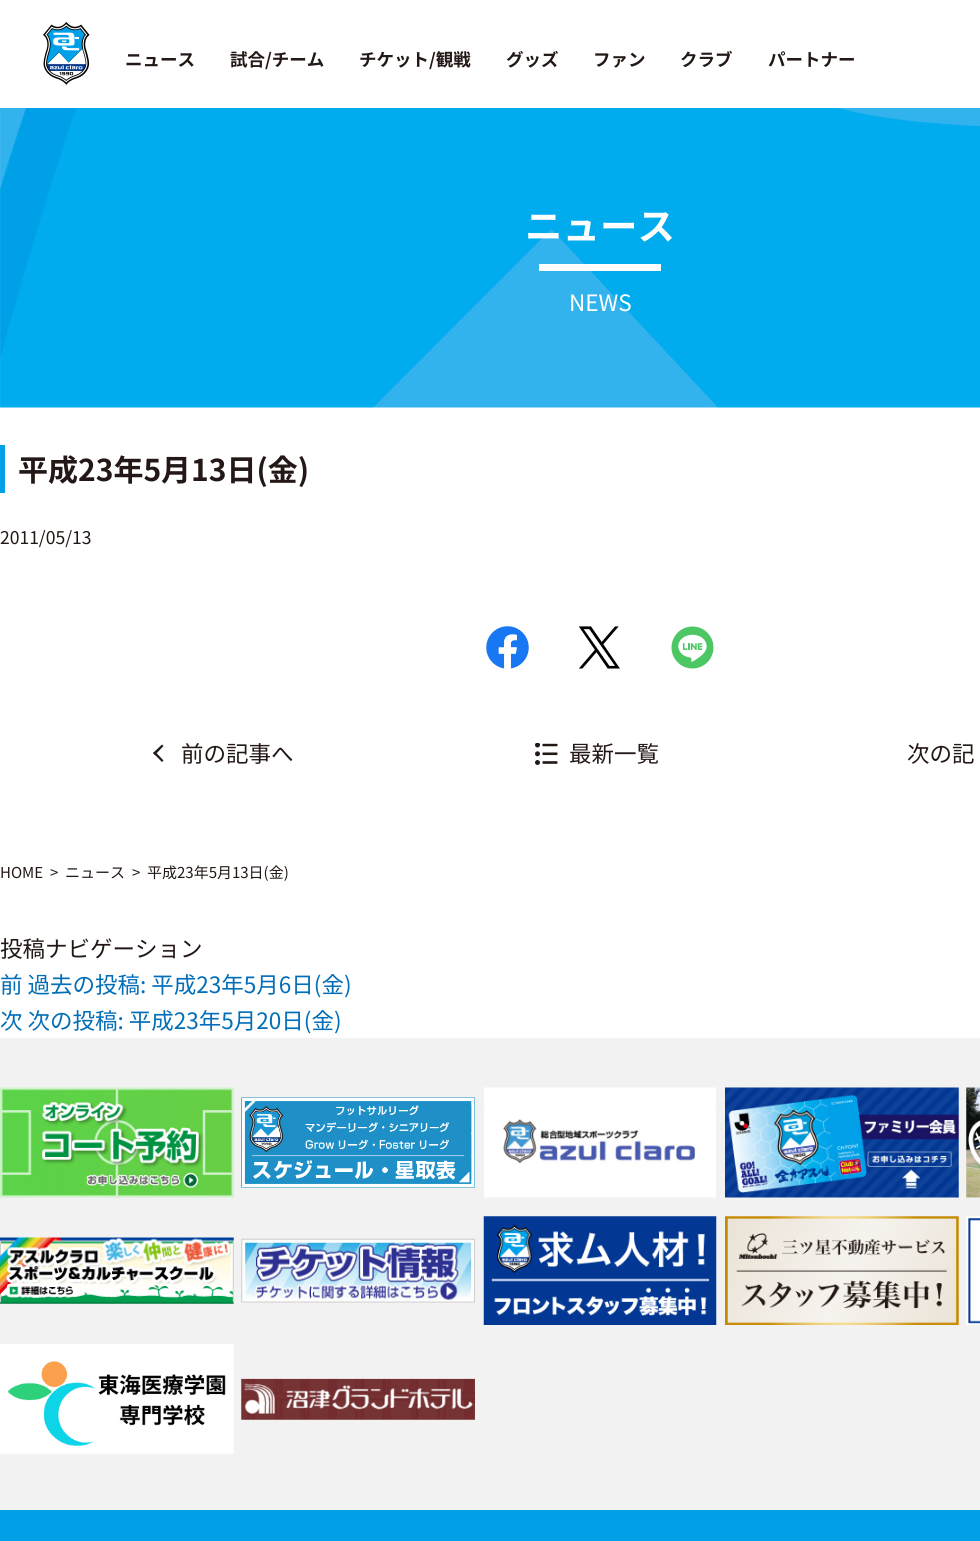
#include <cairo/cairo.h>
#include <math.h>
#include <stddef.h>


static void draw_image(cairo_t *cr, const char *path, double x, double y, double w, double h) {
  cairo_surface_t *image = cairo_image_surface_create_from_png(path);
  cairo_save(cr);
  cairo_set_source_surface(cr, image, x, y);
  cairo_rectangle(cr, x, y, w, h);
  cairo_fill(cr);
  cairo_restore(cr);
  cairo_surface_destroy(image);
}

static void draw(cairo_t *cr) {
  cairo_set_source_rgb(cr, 1, 1, 1);
  cairo_paint(cr);
  draw_image(cr, "images/1.png", 43, 22, 47, 63);
  draw_image(cr, "images/2.png", 0, 108, 980, 300);
  cairo_set_source_rgb(cr, 1, 1, 1);
  cairo_rectangle(cr, 539, 264, 122, 7);
  cairo_fill(cr);
  cairo_set_source_rgb(cr, 0, 160 / 255.0, 233 / 255.0);
  cairo_rectangle(cr, 0, 445, 5, 48);
  cairo_fill(cr);
  draw_image(cr, "images/3.png", 486, 626, 43, 43);
  draw_image(cr, "images/4.png", 579, 626, 41, 43);
  draw_image(cr, "images/5.png", 671, 626, 43, 43);
  cairo_set_source_rgb(cr, 35 / 255.0, 24 / 255.0, 21 / 255.0);
  cairo_new_path(cr);
  cairo_move_to(cr, 155, 751.5);
  cairo_line_to(cr, 163.5, 760.5);
  cairo_line_to(cr, 162, 762);
  cairo_line_to(cr, 153, 753);
  cairo_close_path(cr);
  cairo_fill(cr);
  cairo_new_path(cr);
  cairo_move_to(cr, 162, 744.5);
  cairo_line_to(cr, 163.5, 746);
  cairo_line_to(cr, 155, 755);
  cairo_line_to(cr, 153, 753);
  cairo_close_path(cr);
  cairo_fill(cr);
  draw_image(cr, "images/6.png", 535, 743, 23, 22);
  cairo_set_source_rgb(cr, 242 / 255.0, 242 / 255.0, 242 / 255.0);
  cairo_rectangle(cr, 0, 1038, 980, 472);
  cairo_fill(cr);
  draw_image(cr, "images/7.png", 0, 1087, 234, 111);
  draw_image(cr, "images/8.png", 241, 1097, 234, 91);
  draw_image(cr, "images/9.png", 484, 1087, 232, 111);
  draw_image(cr, "images/10.png", 725, 1087, 234, 111);
  draw_image(cr, "images/11.png", 966, 1087, 14, 111);
  draw_image(cr, "images/12.png", 0, 1237, 234, 67);
  draw_image(cr, "images/13.png", 241, 1238, 234, 65);
  draw_image(cr, "images/14.png", 483, 1216, 234, 109);
  draw_image(cr, "images/15.png", 725, 1216, 234, 109);
  draw_image(cr, "images/16.png", 966, 1216, 14, 109);
  draw_image(cr, "images/17.png", 0, 1344, 234, 110);
  draw_image(cr, "images/18.png", 241, 1378, 234, 42);
  cairo_set_source_rgb(cr, 0, 160 / 255.0, 233 / 255.0);
  cairo_rectangle(cr, 0, 1510, 980, 31);
  cairo_fill(cr);
  cairo_select_font_face(cr, "Noto Sans JP", CAIRO_FONT_SLANT_NORMAL, CAIRO_FONT_WEIGHT_BOLD);
  cairo_set_font_size(cr, 17.5);
  cairo_set_source_rgb(cr, 35 / 255.0, 24 / 255.0, 21 / 255.0);
  cairo_move_to(cr, 125, 66);
  cairo_show_text(cr, "ニュース");
  cairo_move_to(cr, 230, 66);
  cairo_show_text(cr, "試合/チーム");
  cairo_move_to(cr, 359, 66);
  cairo_show_text(cr, "チケット/観戦");
  cairo_move_to(cr, 506, 66);
  cairo_show_text(cr, "グッズ");
  cairo_move_to(cr, 593, 66);
  cairo_show_text(cr, "ファン");
  cairo_move_to(cr, 680, 66);
  cairo_show_text(cr, "クラブ");
  cairo_move_to(cr, 768, 66);
  cairo_show_text(cr, "パートナー");
  cairo_set_font_size(cr, 37.5);
  cairo_set_source_rgb(cr, 1, 1, 1);
  cairo_move_to(cr, 525, 240);
  cairo_show_text(cr, "ニュース");
  cairo_select_font_face(cr, "Noto Sans JP", CAIRO_FONT_SLANT_NORMAL, CAIRO_FONT_WEIGHT_NORMAL);
  cairo_set_font_size(cr, 22.5);
  cairo_move_to(cr, 569, 311);
  cairo_show_text(cr, "NEWS");
  cairo_select_font_face(cr, "Noto Sans JP", CAIRO_FONT_SLANT_NORMAL, CAIRO_FONT_WEIGHT_BOLD);
  cairo_set_font_size(cr, 30);
  cairo_set_source_rgb(cr, 35 / 255.0, 24 / 255.0, 21 / 255.0);
  cairo_move_to(cr, 18, 481);
  cairo_show_text(cr, "平成23年5月13日(金)");
  cairo_select_font_face(cr, "Noto Sans JP", CAIRO_FONT_SLANT_NORMAL, CAIRO_FONT_WEIGHT_NORMAL);
  cairo_set_font_size(cr, 17.5);
  cairo_move_to(cr, 0, 544);
  cairo_show_text(cr, "2011/05/13");
  cairo_set_font_size(cr, 22.5);
  cairo_move_to(cr, 181, 762);
  cairo_show_text(cr, "前の記事へ");
  cairo_move_to(cr, 569, 762);
  cairo_show_text(cr, "最新一覧");
  cairo_move_to(cr, 907, 762);
  cairo_show_text(cr, "次の記");
  cairo_set_font_size(cr, 15);
  cairo_move_to(cr, 0, 878);
  cairo_show_text(cr, "HOME");
  cairo_move_to(cr, 50, 878);
  cairo_show_text(cr, ">");
  cairo_move_to(cr, 65, 878);
  cairo_show_text(cr, "ニュース");
  cairo_move_to(cr, 132, 878);
  cairo_show_text(cr, ">");
  cairo_move_to(cr, 147, 878);
  cairo_show_text(cr, "平成23年5月13日(金)");
  cairo_set_font_size(cr, 22.5);
  cairo_move_to(cr, 0, 957);
  cairo_show_text(cr, "投稿ナビゲーション");
  cairo_set_source_rgb(cr, 3 / 255.0, 110 / 255.0, 184 / 255.0);
  cairo_move_to(cr, 0, 993);
  cairo_show_text(cr, "前 過去の投稿: 平成23年5月6日(金)");
  cairo_move_to(cr, 0, 1029);
  cairo_show_text(cr, "次 次の投稿: 平成23年5月20日(金)");
}

int main(void) {
  cairo_surface_t *surface = cairo_image_surface_create(CAIRO_FORMAT_RGB24, 980, 1541);
  cairo_t *cr = cairo_create(surface);
  cairo_font_options_t *options = cairo_font_options_create();
  cairo_font_options_set_hint_metrics(options, CAIRO_HINT_METRICS_OFF);
  cairo_font_options_set_hint_style(options, CAIRO_HINT_STYLE_NONE);
  cairo_set_font_options(cr, options);
  cairo_set_miter_limit(cr, 4);
  draw(cr);
  cairo_surface_write_to_png(surface, "out.png");
  cairo_font_options_destroy(options);
  cairo_destroy(cr);
  cairo_surface_destroy(surface);
  return 0;
}
